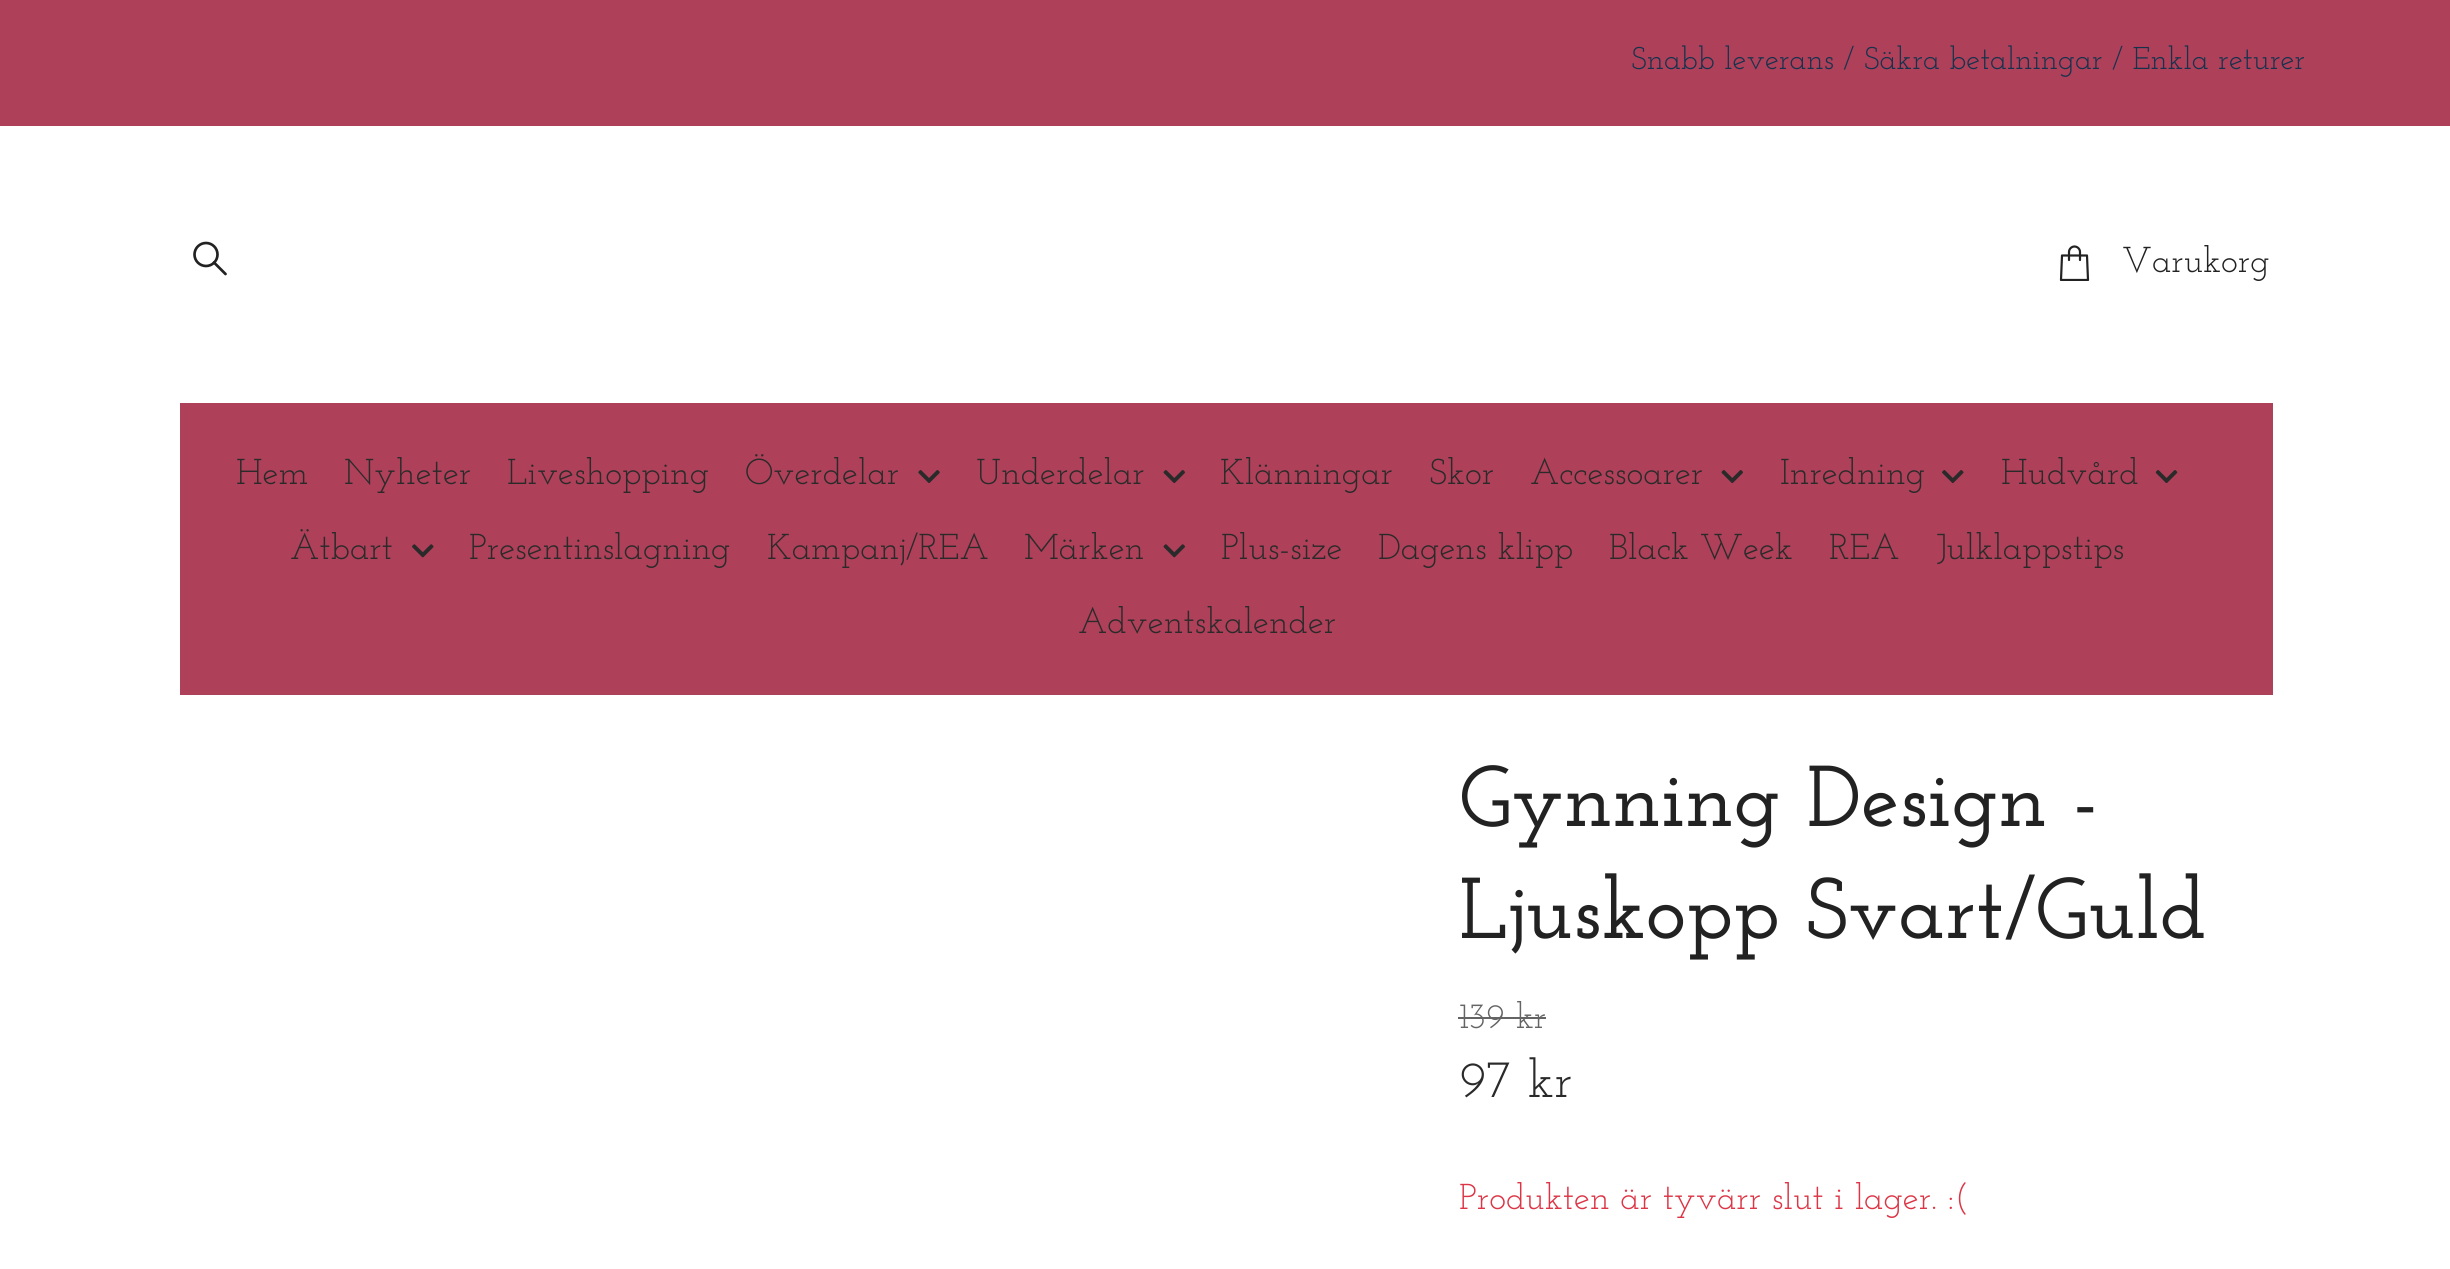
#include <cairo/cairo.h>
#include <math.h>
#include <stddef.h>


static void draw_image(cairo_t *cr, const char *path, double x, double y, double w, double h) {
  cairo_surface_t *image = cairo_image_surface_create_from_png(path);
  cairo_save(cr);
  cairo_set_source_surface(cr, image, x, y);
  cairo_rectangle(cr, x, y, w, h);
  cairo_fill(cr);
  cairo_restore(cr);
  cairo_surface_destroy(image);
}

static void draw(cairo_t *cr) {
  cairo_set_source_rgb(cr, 1, 1, 1);
  cairo_paint(cr);
  cairo_set_source_rgb(cr, 175 / 255.0, 64 / 255.0, 89 / 255.0);
  cairo_rectangle(cr, 0, 0, 2450, 126);
  cairo_fill(cr);
  cairo_new_path(cr);
  cairo_move_to(cr, 214, 262.5);
  cairo_line_to(cr, 225.5, 274);
  cairo_set_source_rgb(cr, 34 / 255.0, 34 / 255.0, 34 / 255.0);
  cairo_set_line_width(cr, 2.7);
  cairo_set_line_cap(cr, CAIRO_LINE_CAP_ROUND);
  cairo_set_line_join(cr, CAIRO_LINE_JOIN_ROUND);
  cairo_stroke(cr);
  cairo_arc(cr, 206, 254.5, 11.5, 0, 2 * M_PI);
  cairo_set_line_cap(cr, CAIRO_LINE_CAP_BUTT);
  cairo_set_line_join(cr, CAIRO_LINE_JOIN_MITER);
  cairo_stroke(cr);
  cairo_save(cr);
  cairo_rectangle(cr, 2048, 245, 54, 36);
  cairo_clip(cr);
  cairo_new_path(cr);
  cairo_move_to(cr, 2088, 280);
  cairo_line_to(cr, 2061, 280);
  cairo_line_to(cr, 2062, 255.5);
  cairo_line_to(cr, 2087, 255.5);
  cairo_close_path(cr);
  cairo_set_line_width(cr, 2.2);
  cairo_set_line_cap(cr, CAIRO_LINE_CAP_ROUND);
  cairo_set_line_join(cr, CAIRO_LINE_JOIN_ROUND);
  cairo_stroke(cr);
  cairo_restore(cr);
  cairo_new_path(cr);
  cairo_move_to(cr, 2069, 260);
  cairo_line_to(cr, 2069, 252);
  cairo_curve_to(cr, 2069, 249, 2071.5, 246.5, 2074.5, 246.5);
  cairo_curve_to(cr, 2077.5, 246.5, 2080, 249, 2080, 252);
  cairo_line_to(cr, 2080, 260);
  cairo_set_line_width(cr, 2.2);
  cairo_set_line_cap(cr, CAIRO_LINE_CAP_ROUND);
  cairo_set_line_join(cr, CAIRO_LINE_JOIN_ROUND);
  cairo_stroke(cr);
  cairo_set_source_rgb(cr, 175 / 255.0, 64 / 255.0, 89 / 255.0);
  cairo_rectangle(cr, 180, 403, 2093, 292);
  cairo_fill(cr);
  draw_image(cr, "images/1.png", 918, 470, 22, 13);
  draw_image(cr, "images/2.png", 1163, 470, 22, 14);
  draw_image(cr, "images/2.png", 1721, 470, 22, 14);
  draw_image(cr, "images/3.png", 1942, 470, 22, 14);
  draw_image(cr, "images/4.png", 2155, 470, 23, 14);
  draw_image(cr, "images/5.png", 412, 544, 22, 14);
  draw_image(cr, "images/6.png", 1163, 544, 22, 14);
  cairo_set_source_rgb(cr, 100 / 255.0, 100 / 255.0, 100 / 255.0);
  cairo_rectangle(cr, 1458, 1017, 88, 2);
  cairo_fill(cr);
  cairo_select_font_face(cr, "Josefin Slab", CAIRO_FONT_SLANT_NORMAL, CAIRO_FONT_WEIGHT_NORMAL);
  cairo_set_font_size(cr, 31.5);
  cairo_set_source_rgb(cr, 20 / 255.0, 50 / 255.0, 77 / 255.0);
  cairo_move_to(cr, 1631, 69);
  cairo_show_text(cr, "Snabb leverans / Säkra betalningar / Enkla returer");
  cairo_set_font_size(cr, 36);
  cairo_set_source_rgb(cr, 34 / 255.0, 34 / 255.0, 34 / 255.0);
  cairo_move_to(cr, 2122, 272);
  cairo_show_text(cr, "Varukorg");
  cairo_set_source_rgb(cr, 42 / 255.0, 42 / 255.0, 42 / 255.0);
  cairo_move_to(cr, 236, 484);
  cairo_show_text(cr, "Hem");
  cairo_move_to(cr, 344, 484);
  cairo_show_text(cr, "Nyheter");
  cairo_move_to(cr, 507, 484);
  cairo_show_text(cr, "Liveshopping");
  cairo_move_to(cr, 745, 484);
  cairo_show_text(cr, "Överdelar");
  cairo_move_to(cr, 976, 484);
  cairo_show_text(cr, "Underdelar");
  cairo_move_to(cr, 1220, 484);
  cairo_show_text(cr, "Klänningar");
  cairo_move_to(cr, 1429, 484);
  cairo_show_text(cr, "Skor");
  cairo_move_to(cr, 1530, 484);
  cairo_show_text(cr, "Accessoarer");
  cairo_move_to(cr, 1780, 484);
  cairo_show_text(cr, "Inredning");
  cairo_move_to(cr, 2001, 484);
  cairo_show_text(cr, "Hudvård");
  cairo_move_to(cr, 290, 559);
  cairo_show_text(cr, "Ätbart");
  cairo_move_to(cr, 469, 559);
  cairo_show_text(cr, "Presentinslagning");
  cairo_move_to(cr, 767, 559);
  cairo_show_text(cr, "Kampanj/REA");
  cairo_move_to(cr, 1024, 559);
  cairo_show_text(cr, "Märken");
  cairo_move_to(cr, 1221, 559);
  cairo_show_text(cr, "Plus-size");
  cairo_move_to(cr, 1378, 559);
  cairo_show_text(cr, "Dagens klipp");
  cairo_move_to(cr, 1609, 559);
  cairo_show_text(cr, "Black Week");
  cairo_move_to(cr, 1829, 559);
  cairo_show_text(cr, "REA");
  cairo_move_to(cr, 1936, 559);
  cairo_show_text(cr, "Julklappstips");
  cairo_move_to(cr, 1078, 633);
  cairo_show_text(cr, "Adventskalender");
  cairo_select_font_face(cr, "Josefin Slab SemiBold", CAIRO_FONT_SLANT_NORMAL, CAIRO_FONT_WEIGHT_NORMAL);
  cairo_set_font_size(cr, 86.25);
  cairo_set_source_rgb(cr, 34 / 255.0, 34 / 255.0, 34 / 255.0);
  cairo_move_to(cr, 1459, 826);
  cairo_show_text(cr, "Gynning Design -");
  cairo_move_to(cr, 1459, 938);
  cairo_show_text(cr, "Ljuskopp Svart/Guld");
  cairo_select_font_face(cr, "Josefin Slab", CAIRO_FONT_SLANT_NORMAL, CAIRO_FONT_WEIGHT_NORMAL);
  cairo_set_font_size(cr, 36);
  cairo_set_source_rgb(cr, 100 / 255.0, 100 / 255.0, 100 / 255.0);
  cairo_move_to(cr, 1459, 1028);
  cairo_show_text(cr, "139 kr");
  cairo_set_font_size(cr, 53);
  cairo_set_source_rgb(cr, 42 / 255.0, 42 / 255.0, 42 / 255.0);
  cairo_move_to(cr, 1459, 1097);
  cairo_show_text(cr, "97 kr");
  cairo_set_font_size(cr, 36);
  cairo_set_source_rgb(cr, 220 / 255.0, 53 / 255.0, 69 / 255.0);
  cairo_move_to(cr, 1459, 1209);
  cairo_show_text(cr, "Produkten är tyvärr slut i lager. :(");
}

int main(void) {
  cairo_surface_t *surface = cairo_image_surface_create(CAIRO_FORMAT_RGB24, 2450, 1269);
  cairo_t *cr = cairo_create(surface);
  cairo_font_options_t *options = cairo_font_options_create();
  cairo_font_options_set_hint_metrics(options, CAIRO_HINT_METRICS_OFF);
  cairo_font_options_set_hint_style(options, CAIRO_HINT_STYLE_NONE);
  cairo_set_font_options(cr, options);
  cairo_set_miter_limit(cr, 4);
  draw(cr);
  cairo_surface_write_to_png(surface, "out.png");
  cairo_font_options_destroy(options);
  cairo_destroy(cr);
  cairo_surface_destroy(surface);
  return 0;
}
